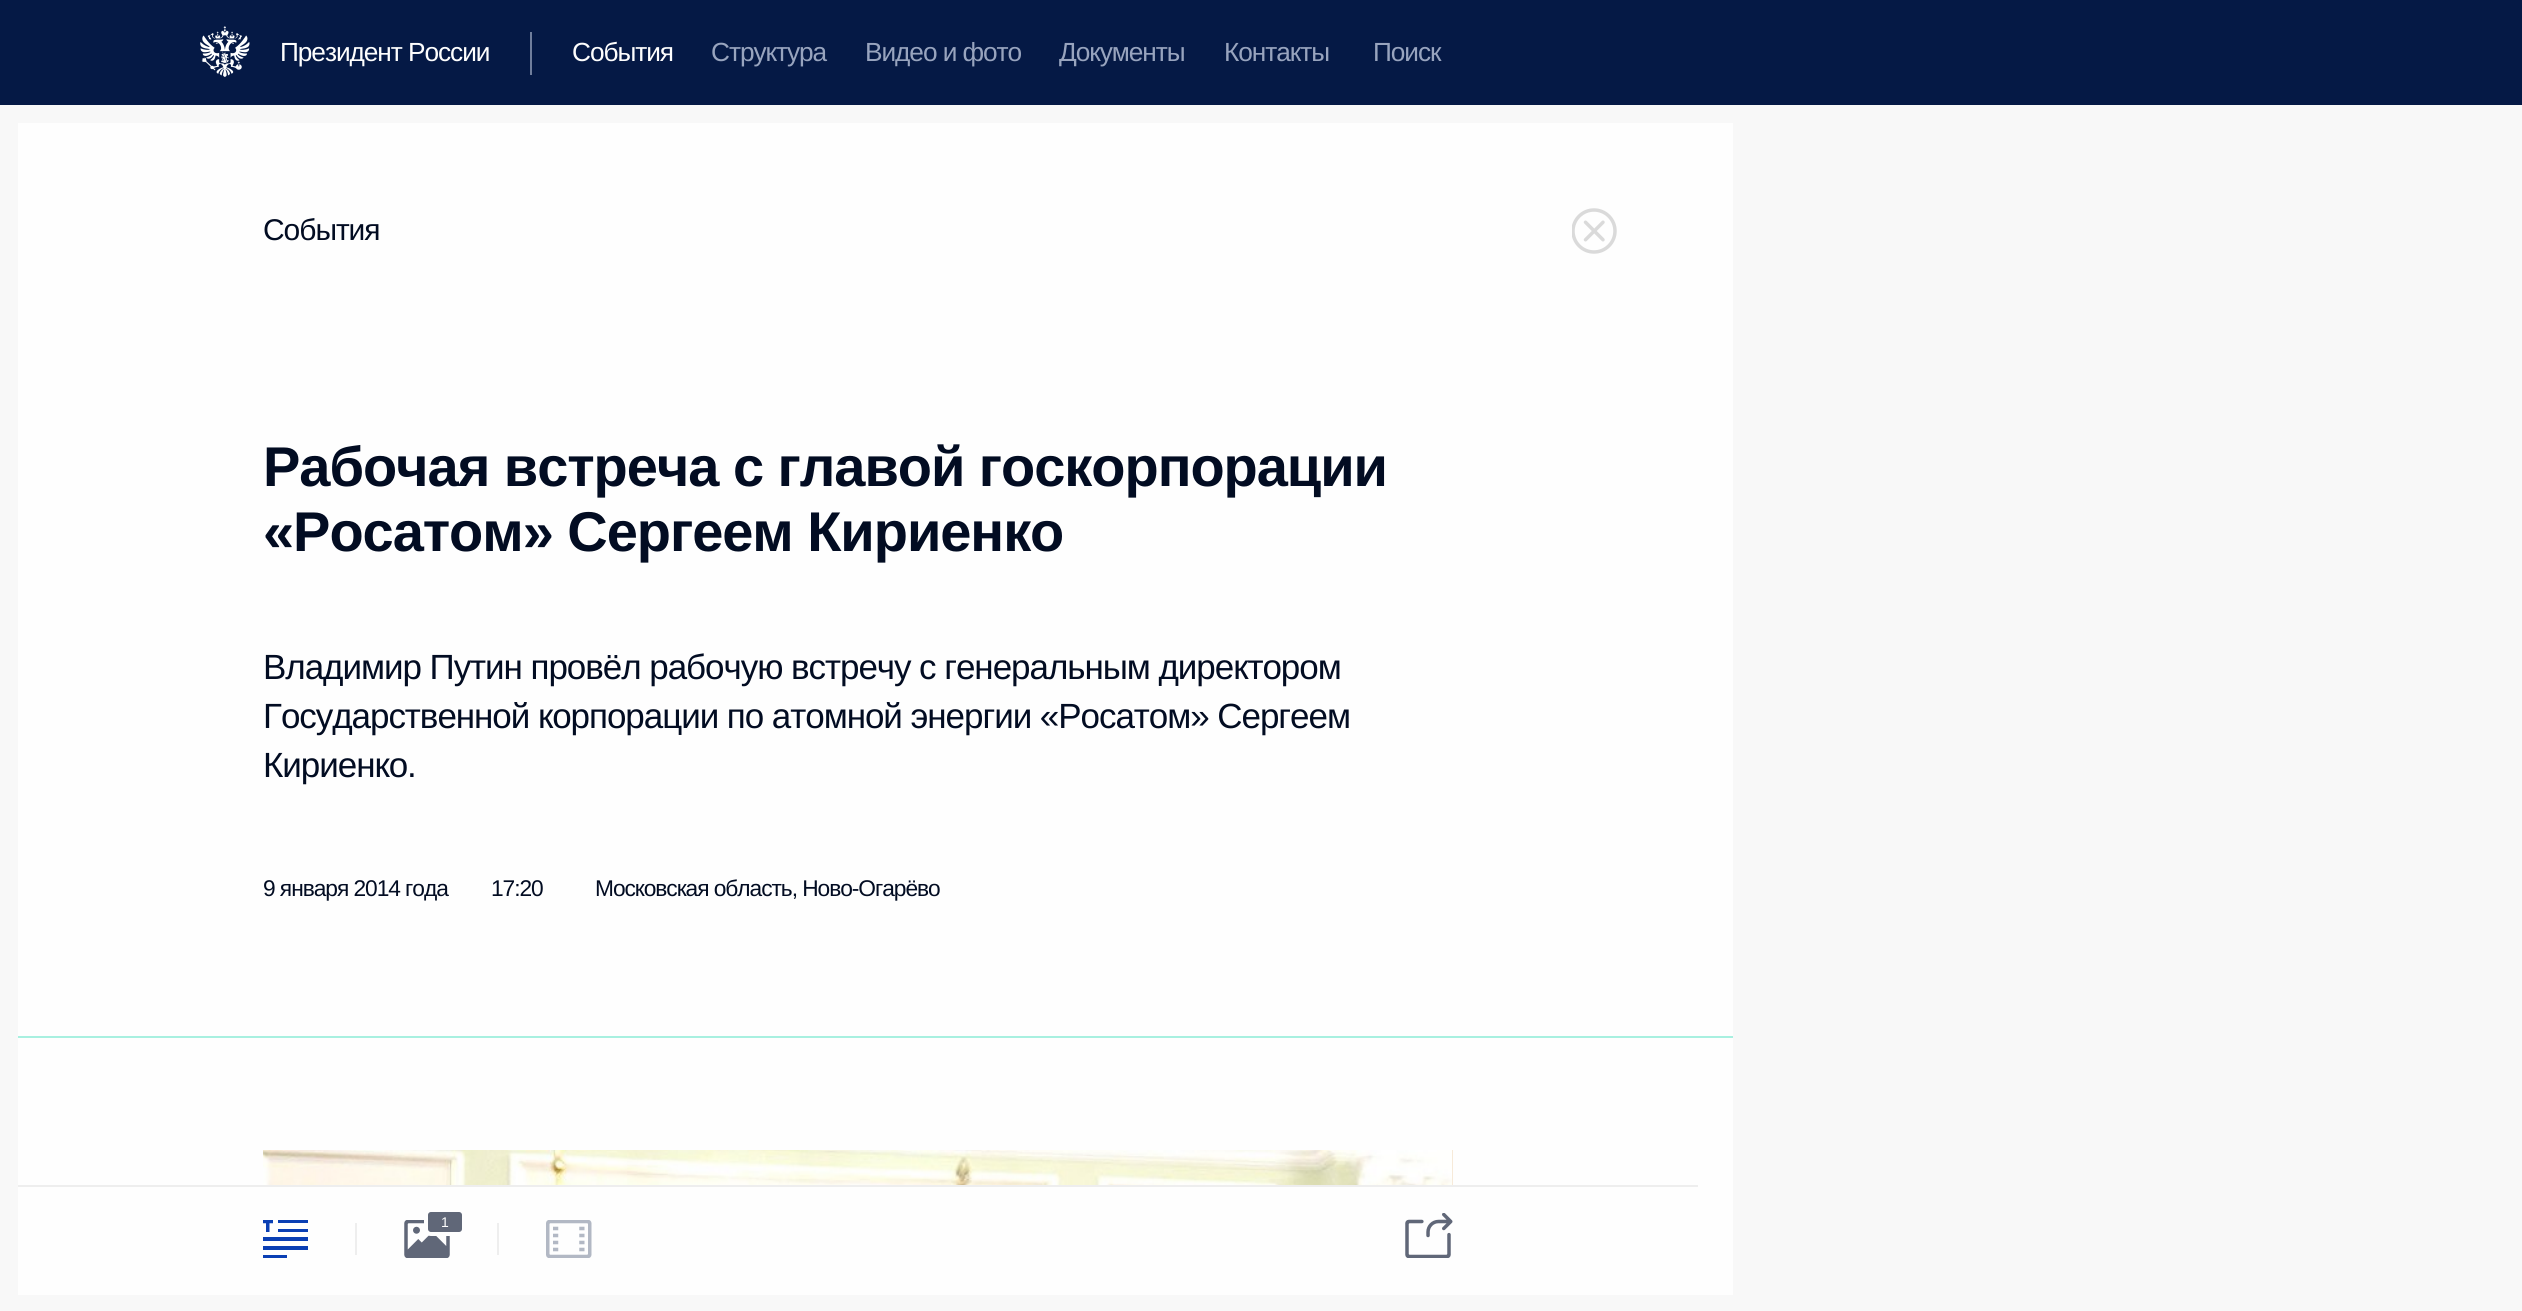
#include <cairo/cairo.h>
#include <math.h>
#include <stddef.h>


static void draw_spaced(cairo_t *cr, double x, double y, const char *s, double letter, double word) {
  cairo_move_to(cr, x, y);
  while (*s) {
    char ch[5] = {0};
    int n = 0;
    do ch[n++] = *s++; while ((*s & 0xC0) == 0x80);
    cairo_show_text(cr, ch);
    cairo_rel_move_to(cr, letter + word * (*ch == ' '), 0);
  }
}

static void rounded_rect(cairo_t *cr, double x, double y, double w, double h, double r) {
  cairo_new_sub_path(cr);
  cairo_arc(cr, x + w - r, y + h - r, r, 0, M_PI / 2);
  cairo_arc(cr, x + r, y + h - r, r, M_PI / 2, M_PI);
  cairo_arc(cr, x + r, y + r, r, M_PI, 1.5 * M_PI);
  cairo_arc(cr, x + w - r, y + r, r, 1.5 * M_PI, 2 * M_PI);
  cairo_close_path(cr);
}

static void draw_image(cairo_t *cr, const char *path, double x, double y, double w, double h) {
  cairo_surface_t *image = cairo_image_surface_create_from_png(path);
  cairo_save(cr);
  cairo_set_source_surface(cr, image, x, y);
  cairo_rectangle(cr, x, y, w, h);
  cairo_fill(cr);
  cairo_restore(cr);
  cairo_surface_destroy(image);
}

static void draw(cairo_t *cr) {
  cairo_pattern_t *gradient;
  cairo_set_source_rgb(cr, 248 / 255.0, 248 / 255.0, 248 / 255.0);
  cairo_paint(cr);
  cairo_set_source_rgb(cr, 5 / 255.0, 25 / 255.0, 69 / 255.0);
  cairo_rectangle(cr, 0, 0, 2522, 105);
  cairo_fill(cr);
  draw_image(cr, "images/1.png", 200, 26, 50, 51);
  cairo_set_source_rgb(cr, 112 / 255.0, 126 / 255.0, 156 / 255.0);
  cairo_rectangle(cr, 530, 32, 2, 43);
  cairo_fill(cr);
  cairo_set_source_rgb(cr, 254 / 255.0, 254 / 255.0, 254 / 255.0);
  cairo_rectangle(cr, 18, 123, 1715, 1172);
  cairo_fill(cr);
  cairo_set_source_rgb(cr, 168 / 255.0, 240 / 255.0, 224 / 255.0);
  cairo_rectangle(cr, 18, 1036, 1715, 2);
  cairo_fill(cr);
  gradient = cairo_pattern_create_linear(1453, 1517, 262, 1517);
  cairo_pattern_add_color_stop_rgba(gradient, 0, 247 / 255.0, 234 / 255.0, 217 / 255.0, 1);
  cairo_pattern_add_color_stop_rgba(gradient, 1, 247 / 255.0, 234 / 255.0, 217 / 255.0, 0);
  cairo_set_source(cr, gradient);
  cairo_pattern_destroy(gradient);
  cairo_rectangle(cr, 1452, 1150, 1, 35);
  cairo_fill(cr);
  draw_image(cr, "images/2.png", 263, 1150, 1189, 35);
  draw_image(cr, "images/3.png", 1572, 208, 45, 46);
  cairo_set_source_rgb(cr, 238 / 255.0, 238 / 255.0, 238 / 255.0);
  cairo_rectangle(cr, 18, 1185, 1680, 2);
  cairo_fill(cr);
  draw_image(cr, "images/4.png", 263, 1220, 45, 38);
  cairo_rectangle(cr, 355, 1223, 2, 32);
  cairo_fill(cr);
  draw_image(cr, "images/5.png", 404, 1220, 46, 38);
  cairo_set_source_rgb(cr, 96 / 255.0, 103 / 255.0, 120 / 255.0);
  rounded_rect(cr, 426, 1210, 38, 24, 5);
  cairo_fill_preserve(cr);
  cairo_set_source_rgb(cr, 254 / 255.0, 254 / 255.0, 254 / 255.0);
  cairo_set_line_width(cr, 4);
  cairo_stroke(cr);
  cairo_set_source_rgb(cr, 238 / 255.0, 238 / 255.0, 238 / 255.0);
  cairo_rectangle(cr, 497, 1223, 2, 32);
  cairo_fill(cr);
  draw_image(cr, "images/6.png", 546, 1220, 46, 38);
  draw_image(cr, "images/7.png", 1405, 1213, 48, 45);
  cairo_select_font_face(cr, "Liberation Sans", CAIRO_FONT_SLANT_NORMAL, CAIRO_FONT_WEIGHT_NORMAL);
  cairo_set_font_size(cr, 26.25);
  cairo_set_source_rgb(cr, 254 / 255.0, 254 / 255.0, 254 / 255.0);
  draw_spaced(cr, 280, 61, "Президент России", -1.05, 0);
  draw_spaced(cr, 572, 61, "События", -1.05, 0);
  cairo_set_source_rgb(cr, 152 / 255.0, 164 / 255.0, 190 / 255.0);
  draw_spaced(cr, 711, 61, "Структура", -1.05, 0);
  draw_spaced(cr, 865, 61, "Видео и фото", -1.05, 0);
  draw_spaced(cr, 1059, 61, "Документы", -1.05, 0);
  draw_spaced(cr, 1224, 61, "Контакты", -1.05, 0);
  draw_spaced(cr, 1373, 61, "Поиск", -1.05, 0);
  cairo_set_font_size(cr, 30);
  cairo_set_source_rgb(cr, 2 / 255.0, 12 / 255.0, 34 / 255.0);
  draw_spaced(cr, 263, 240, "События", -1.05, 0);
  cairo_select_font_face(cr, "Liberation Sans", CAIRO_FONT_SLANT_NORMAL, CAIRO_FONT_WEIGHT_BOLD);
  cairo_set_font_size(cr, 56);
  draw_spaced(cr, 263, 486, "Рабочая встреча с главой госкорпорации", -1.05, 0);
  draw_spaced(cr, 263, 551, "«Росатом» Сергеем Кириенко", -1.05, 0);
  cairo_select_font_face(cr, "Liberation Sans", CAIRO_FONT_SLANT_NORMAL, CAIRO_FONT_WEIGHT_NORMAL);
  cairo_set_font_size(cr, 35);
  draw_spaced(cr, 263, 679, "Владимир Путин провёл рабочую встречу с генеральным директором", -1.05, 0);
  draw_spaced(cr, 263, 728, "Государственной корпорации по атомной энергии «Росатом» Сергеем", -1.05, 0);
  draw_spaced(cr, 263, 777, "Кириенко.", -1.05, 0);
  cairo_set_font_size(cr, 22.75);
  draw_spaced(cr, 263, 896, "9 января 2014 года", -1.05, 0);
  draw_spaced(cr, 491, 896, "17:20", -1.05, 0);
  draw_spaced(cr, 595, 896, "Московская область, Ново-Огарёво", -1.05, 0);
  cairo_set_font_size(cr, 14);
  cairo_set_source_rgb(cr, 254 / 255.0, 254 / 255.0, 254 / 255.0);
  draw_spaced(cr, 441, 1227, "1", -1.05, 0);
}

int main(void) {
  cairo_surface_t *surface = cairo_image_surface_create(CAIRO_FORMAT_RGB24, 2522, 1311);
  cairo_t *cr = cairo_create(surface);
  cairo_font_options_t *options = cairo_font_options_create();
  cairo_font_options_set_hint_metrics(options, CAIRO_HINT_METRICS_OFF);
  cairo_font_options_set_hint_style(options, CAIRO_HINT_STYLE_NONE);
  cairo_set_font_options(cr, options);
  cairo_set_miter_limit(cr, 4);
  draw(cr);
  cairo_surface_write_to_png(surface, "out.png");
  cairo_font_options_destroy(options);
  cairo_destroy(cr);
  cairo_surface_destroy(surface);
  return 0;
}
